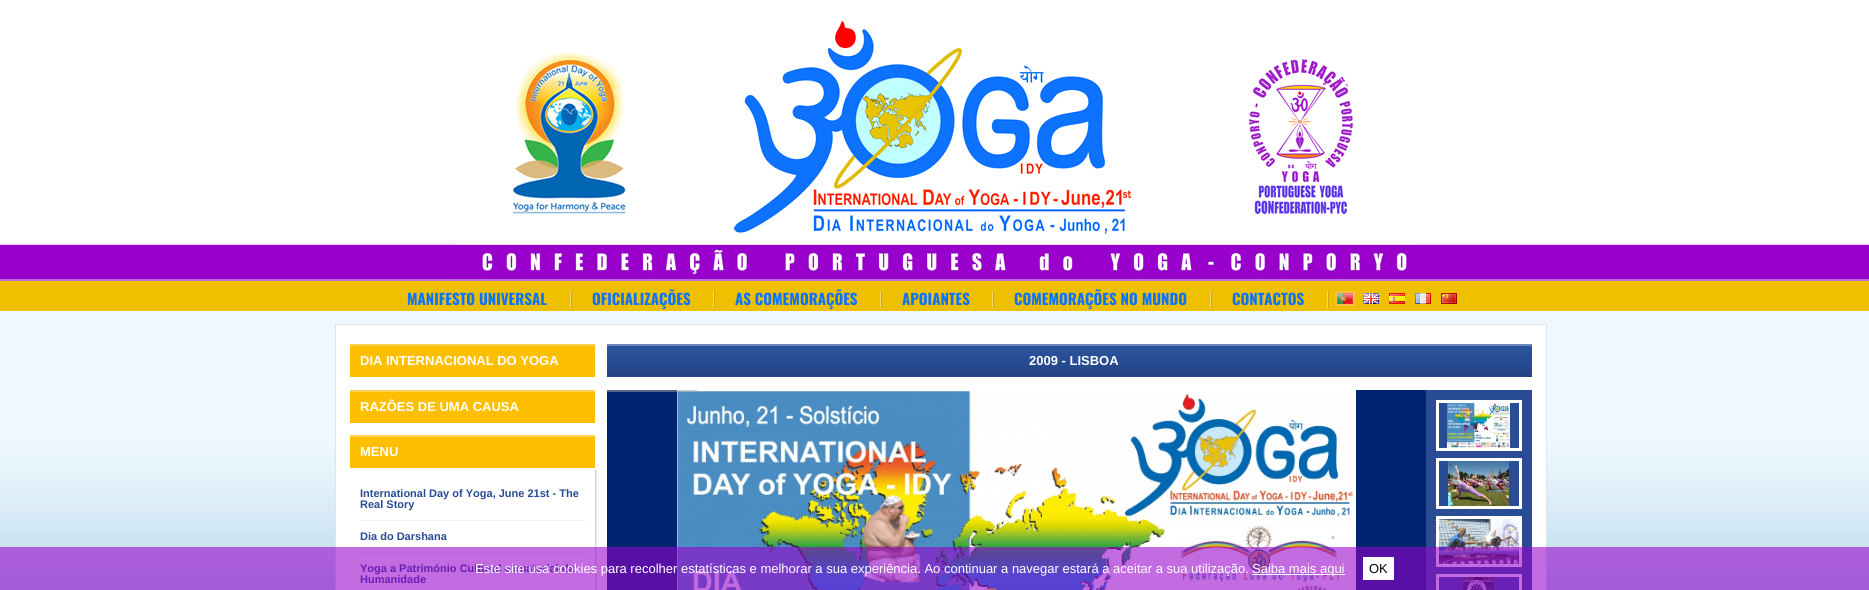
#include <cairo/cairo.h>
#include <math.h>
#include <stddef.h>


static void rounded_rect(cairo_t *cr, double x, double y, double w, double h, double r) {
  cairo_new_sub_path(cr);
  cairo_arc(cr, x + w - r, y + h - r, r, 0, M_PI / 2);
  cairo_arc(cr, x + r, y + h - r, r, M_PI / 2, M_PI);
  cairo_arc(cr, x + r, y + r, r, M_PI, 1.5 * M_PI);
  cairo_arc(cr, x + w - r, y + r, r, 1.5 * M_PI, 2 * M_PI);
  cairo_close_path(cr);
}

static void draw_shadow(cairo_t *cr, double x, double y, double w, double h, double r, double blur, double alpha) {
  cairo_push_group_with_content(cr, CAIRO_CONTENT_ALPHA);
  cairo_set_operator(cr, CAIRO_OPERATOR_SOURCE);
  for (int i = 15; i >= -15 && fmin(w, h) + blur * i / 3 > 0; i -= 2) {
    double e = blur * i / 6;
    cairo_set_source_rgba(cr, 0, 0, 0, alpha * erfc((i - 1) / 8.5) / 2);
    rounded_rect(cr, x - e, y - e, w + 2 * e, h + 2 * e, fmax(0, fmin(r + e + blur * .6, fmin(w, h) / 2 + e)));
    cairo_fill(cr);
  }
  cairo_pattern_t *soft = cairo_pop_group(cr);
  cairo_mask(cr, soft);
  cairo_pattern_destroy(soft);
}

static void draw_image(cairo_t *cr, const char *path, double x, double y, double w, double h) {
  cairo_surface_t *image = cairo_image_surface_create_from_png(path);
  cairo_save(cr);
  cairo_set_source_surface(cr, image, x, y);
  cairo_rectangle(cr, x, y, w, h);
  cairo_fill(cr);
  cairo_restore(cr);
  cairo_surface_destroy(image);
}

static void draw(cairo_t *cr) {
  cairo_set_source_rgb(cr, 1, 1, 1);
  cairo_paint(cr);
  draw_image(cr, "images/1.png", 0, 0, 1869, 590);
  draw_image(cr, "images/2.png", 455, 16, 960, 263);
  draw_image(cr, "images/3.png", 570, 291, 2, 17);
  draw_image(cr, "images/3.png", 713, 291, 2, 17);
  draw_image(cr, "images/3.png", 880, 291, 2, 17);
  draw_image(cr, "images/3.png", 992, 291, 2, 17);
  draw_image(cr, "images/3.png", 1210, 291, 2, 17);
  draw_image(cr, "images/3.png", 1327, 291, 2, 17);
  cairo_rectangle(cr, 1336, 292, 18, 13);
  cairo_set_source_rgb(cr, 1, 189 / 255.0, 62 / 255.0);
  cairo_stroke(cr);
  draw_image(cr, "images/4.png", 1337, 293, 16, 11);
  draw_image(cr, "images/5.png", 1363, 293, 16, 11);
  draw_image(cr, "images/6.png", 1389, 293, 16, 11);
  draw_image(cr, "images/7.png", 1415, 293, 16, 11);
  draw_image(cr, "images/8.png", 1441, 293, 16, 11);
  cairo_set_source_rgb(cr, 1, 1, 1);
  cairo_rectangle(cr, 335.5, 324.5, 1211, 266);
  cairo_fill_preserve(cr);
  cairo_set_source_rgb(cr, 222 / 255.0, 230 / 255.0, 234 / 255.0);
  cairo_set_line_width(cr, 1);
  cairo_stroke(cr);
  draw_image(cr, "images/9.png", 350, 344, 245, 33);
  draw_image(cr, "images/9.png", 350, 390, 245, 33);
  draw_image(cr, "images/9.png", 350, 435, 245, 33);
  cairo_save(cr);
  cairo_rectangle(cr, 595, 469, 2, 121);
  cairo_clip(cr);
  cairo_set_source_rgb(cr, 0, 0, 0);
  draw_shadow(cr, 351, 470, 245, 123, 0, 1, 0.25);
  cairo_restore(cr);
  cairo_set_source_rgb(cr, 243 / 255.0, 239 / 255.0, 239 / 255.0);
  cairo_rectangle(cr, 360, 520, 225, 1);
  cairo_fill(cr);
  cairo_rectangle(cr, 360, 552, 225, 1);
  cairo_fill(cr);
  cairo_set_source_rgb(cr, 36 / 255.0, 68 / 255.0, 135 / 255.0);
  cairo_rectangle(cr, 607, 370, 925, 7);
  cairo_fill(cr);
  draw_image(cr, "images/10.png", 607, 344, 925, 26);
  cairo_set_source_rgb(cr, 0, 36 / 255.0, 111 / 255.0);
  cairo_rectangle(cr, 607, 390, 819, 200);
  cairo_fill(cr);
  draw_image(cr, "images/11.png", 677, 390, 679, 200);
  cairo_set_source_rgba(cr, 170 / 255.0, 170 / 255.0, 170 / 255.0, 0.5);
  cairo_rectangle(cr, 607, 390, 90, 2);
  cairo_fill(cr);
  cairo_set_source_rgb(cr, 41 / 255.0, 76 / 255.0, 148 / 255.0);
  cairo_rectangle(cr, 1426, 390, 106, 200);
  cairo_fill(cr);
  cairo_rectangle(cr, 1437.5, 401.5, 83, 48);
  cairo_set_source_rgb(cr, 1, 1, 1);
  cairo_set_line_width(cr, 3);
  cairo_stroke(cr);
  draw_image(cr, "images/12.png", 1447, 403, 63, 45);
  cairo_rectangle(cr, 1437.5, 459.5, 83, 48);
  cairo_stroke(cr);
  draw_image(cr, "images/13.png", 1448, 461, 61, 45);
  cairo_rectangle(cr, 1437.5, 517.5, 83, 48);
  cairo_stroke(cr);
  draw_image(cr, "images/14.png", 1439, 519, 80, 45);
  cairo_rectangle(cr, 1437.5, 575.5, 83, 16);
  cairo_stroke(cr);
  draw_image(cr, "images/15.png", 1463, 577, 31, 13);
  cairo_select_font_face(cr, "Oswald", CAIRO_FONT_SLANT_NORMAL, CAIRO_FONT_WEIGHT_BOLD);
  cairo_set_font_size(cr, 15);
  cairo_set_source_rgb(cr, 12 / 255.0, 115 / 255.0, 253 / 255.0);
  cairo_move_to(cr, 407, 305);
  cairo_show_text(cr, "MANIFESTO UNIVERSAL");
  cairo_move_to(cr, 592, 305);
  cairo_show_text(cr, "OFICIALIZAÇÕES");
  cairo_move_to(cr, 735, 305);
  cairo_show_text(cr, "AS COMEMORAÇÕES");
  cairo_move_to(cr, 902, 305);
  cairo_show_text(cr, "APOIANTES");
  cairo_move_to(cr, 1014, 305);
  cairo_show_text(cr, "COMEMORAÇÕES NO MUNDO");
  cairo_move_to(cr, 1232, 305);
  cairo_show_text(cr, "CONTACTOS");
  cairo_select_font_face(cr, "Liberation Sans", CAIRO_FONT_SLANT_NORMAL, CAIRO_FONT_WEIGHT_BOLD);
  cairo_set_font_size(cr, 13);
  cairo_set_source_rgb(cr, 1, 1, 1);
  cairo_move_to(cr, 360, 365);
  cairo_show_text(cr, "DIA INTERNACIONAL DO YOGA");
  cairo_move_to(cr, 360, 411);
  cairo_show_text(cr, "RAZÕES DE UMA CAUSA");
  cairo_move_to(cr, 360, 456);
  cairo_show_text(cr, "MENU");
  cairo_set_font_size(cr, 11);
  cairo_set_source_rgb(cr, 40 / 255.0, 75 / 255.0, 146 / 255.0);
  cairo_move_to(cr, 360, 497);
  cairo_show_text(cr, "International Day of Yoga, June 21st - The");
  cairo_move_to(cr, 360, 508);
  cairo_show_text(cr, "Real Story");
  cairo_move_to(cr, 360, 540);
  cairo_show_text(cr, "Dia do Darshana");
  cairo_move_to(cr, 360, 572);
  cairo_show_text(cr, "Yoga a Património Cultural e Imaterial da");
  cairo_move_to(cr, 360, 583);
  cairo_show_text(cr, "Humanidade");
  cairo_set_source_rgba(cr, 152 / 255.0, 0, 204 / 255.0, 0.58);
  cairo_rectangle(cr, 0, 547, 1869, 43);
  cairo_fill(cr);
  cairo_set_source_rgb(cr, 1, 1, 1);
  cairo_rectangle(cr, 1363, 557, 31, 23);
  cairo_fill(cr);
  cairo_select_font_face(cr, "Liberation Sans", CAIRO_FONT_SLANT_NORMAL, CAIRO_FONT_WEIGHT_NORMAL);
  cairo_set_font_size(cr, 13);
  cairo_set_source_rgb(cr, 0, 0, 0);
  cairo_move_to(cr, 1369, 573);
  cairo_show_text(cr, "OK");
  cairo_set_source_rgb(cr, 1, 1, 1);
  cairo_rectangle(cr, 1252, 574, 93, 1);
  cairo_fill(cr);
  cairo_move_to(cr, 1252, 573);
  cairo_show_text(cr, "Saiba mais aqui");
  cairo_move_to(cr, 475, 573);
  cairo_show_text(cr, "Este site usa cookies para recolher estatísticas e melhorar a sua experiência. Ao continuar a navegar estará a aceitar a sua utilização.");
  cairo_select_font_face(cr, "Liberation Sans", CAIRO_FONT_SLANT_NORMAL, CAIRO_FONT_WEIGHT_BOLD);
  cairo_move_to(cr, 1029, 365);
  cairo_show_text(cr, "2009 - LISBOA");
}

int main(void) {
  cairo_surface_t *surface = cairo_image_surface_create(CAIRO_FORMAT_RGB24, 1869, 590);
  cairo_t *cr = cairo_create(surface);
  cairo_font_options_t *options = cairo_font_options_create();
  cairo_font_options_set_hint_metrics(options, CAIRO_HINT_METRICS_OFF);
  cairo_font_options_set_hint_style(options, CAIRO_HINT_STYLE_NONE);
  cairo_set_font_options(cr, options);
  cairo_set_miter_limit(cr, 4);
  draw(cr);
  cairo_surface_write_to_png(surface, "out.png");
  cairo_font_options_destroy(options);
  cairo_destroy(cr);
  cairo_surface_destroy(surface);
  return 0;
}
